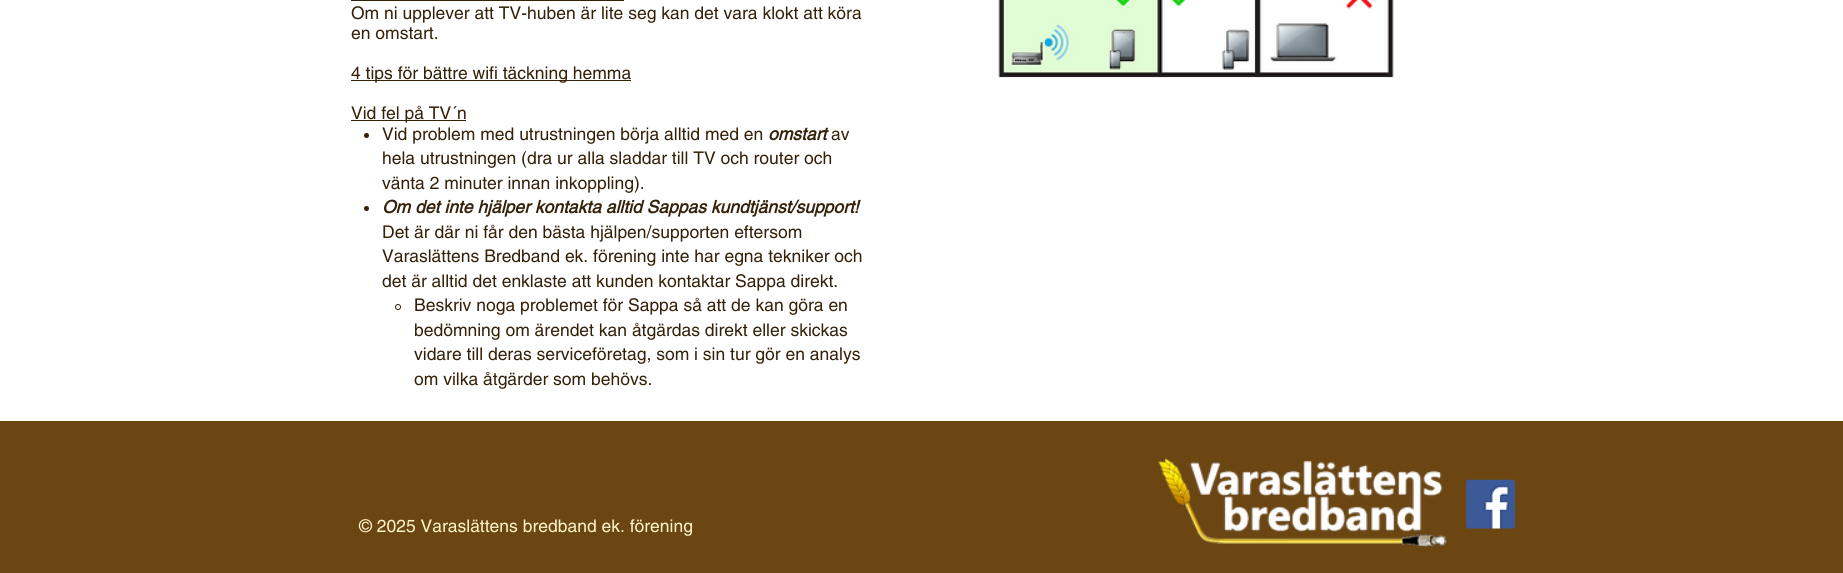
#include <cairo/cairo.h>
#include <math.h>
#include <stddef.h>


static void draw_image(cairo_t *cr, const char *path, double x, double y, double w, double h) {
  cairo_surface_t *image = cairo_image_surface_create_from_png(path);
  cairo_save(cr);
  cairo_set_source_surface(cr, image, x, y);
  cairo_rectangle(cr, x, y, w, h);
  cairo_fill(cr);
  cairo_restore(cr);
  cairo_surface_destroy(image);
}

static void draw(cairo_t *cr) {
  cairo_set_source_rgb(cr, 1, 1, 1);
  cairo_paint(cr);
  cairo_set_source_rgb(cr, 52 / 255.0, 33 / 255.0, 9 / 255.0);
  cairo_rectangle(cr, 351, 0, 273, 1);
  cairo_fill(cr);
  cairo_rectangle(cr, 351, 80, 280, 1);
  cairo_fill(cr);
  cairo_rectangle(cr, 351, 120, 115, 1);
  cairo_fill(cr);
  cairo_arc(cr, 366.5, 135.5, 2.5, 0, 2 * M_PI);
  cairo_fill(cr);
  cairo_arc(cr, 366.5, 208.5, 2.5, 0, 2 * M_PI);
  cairo_fill(cr);
  cairo_arc(cr, 398, 307, 2.5, 0, 2 * M_PI);
  cairo_set_line_width(cr, 1);
  cairo_stroke(cr);
  draw_image(cr, "images/1.png", 998, 0, 396, 78);
  cairo_set_source_rgb(cr, 107 / 255.0, 70 / 255.0, 19 / 255.0);
  cairo_rectangle(cr, 0, 421, 1843, 152);
  cairo_fill(cr);
  draw_image(cr, "images/2.png", 1157, 458, 290, 90);
  draw_image(cr, "images/3.png", 1466, 479, 49, 50);
  cairo_select_font_face(cr, "helvetica", CAIRO_FONT_SLANT_NORMAL, CAIRO_FONT_WEIGHT_NORMAL);
  cairo_set_font_size(cr, 17.5);
  cairo_set_source_rgb(cr, 52 / 255.0, 33 / 255.0, 9 / 255.0);
  cairo_move_to(cr, 351, 19);
  cairo_show_text(cr, "Om ni upplever att TV-huben är lite seg kan det vara klokt att köra");
  cairo_move_to(cr, 351, 39);
  cairo_show_text(cr, "en omstart.");
  cairo_move_to(cr, 351, 79);
  cairo_show_text(cr, "4 tips för bättre wifi täckning hemma");
  cairo_move_to(cr, 351, 119);
  cairo_show_text(cr, "Vid fel på TV´n");
  cairo_move_to(cr, 382, 140);
  cairo_show_text(cr, "Vid problem med utrustningen börja alltid med en");
  cairo_select_font_face(cr, "helvetica", CAIRO_FONT_SLANT_ITALIC, CAIRO_FONT_WEIGHT_BOLD);
  cairo_move_to(cr, 768, 140);
  cairo_show_text(cr, "omstart");
  cairo_select_font_face(cr, "helvetica", CAIRO_FONT_SLANT_NORMAL, CAIRO_FONT_WEIGHT_NORMAL);
  cairo_move_to(cr, 831, 140);
  cairo_show_text(cr, "av");
  cairo_move_to(cr, 382, 164);
  cairo_show_text(cr, "hela utrustningen (dra ur alla sladdar till TV och router och");
  cairo_move_to(cr, 382, 189);
  cairo_show_text(cr, "vänta 2 minuter innan inkoppling).");
  cairo_select_font_face(cr, "helvetica", CAIRO_FONT_SLANT_ITALIC, CAIRO_FONT_WEIGHT_BOLD);
  cairo_move_to(cr, 382, 213);
  cairo_show_text(cr, "Om det inte hjälper kontakta alltid Sappas kundtjänst/support!");
  cairo_select_font_face(cr, "helvetica", CAIRO_FONT_SLANT_NORMAL, CAIRO_FONT_WEIGHT_NORMAL);
  cairo_move_to(cr, 382, 238);
  cairo_show_text(cr, "Det är där ni får den bästa hjälpen/supporten eftersom");
  cairo_move_to(cr, 382, 262);
  cairo_show_text(cr, "Varaslättens Bredband ek. förening inte har egna tekniker och");
  cairo_move_to(cr, 382, 287);
  cairo_show_text(cr, "det är alltid det enklaste att kunden kontaktar Sappa direkt.");
  cairo_move_to(cr, 414, 311);
  cairo_show_text(cr, "Beskriv noga problemet för Sappa så att de kan göra en");
  cairo_move_to(cr, 414, 336);
  cairo_show_text(cr, "bedömning om ärendet kan åtgärdas direkt eller skickas");
  cairo_move_to(cr, 414, 360);
  cairo_show_text(cr, "vidare till deras serviceföretag, som i sin tur gör en analys");
  cairo_move_to(cr, 414, 385);
  cairo_show_text(cr, "om vilka åtgärder som behövs.");
  cairo_set_source_rgb(cr, 1, 244 / 255.0, 202 / 255.0);
  cairo_move_to(cr, 359, 532);
  cairo_show_text(cr, "© 2025 Varaslättens bredband ek. förening");
}

int main(void) {
  cairo_surface_t *surface = cairo_image_surface_create(CAIRO_FORMAT_RGB24, 1843, 573);
  cairo_t *cr = cairo_create(surface);
  cairo_font_options_t *options = cairo_font_options_create();
  cairo_font_options_set_hint_metrics(options, CAIRO_HINT_METRICS_OFF);
  cairo_font_options_set_hint_style(options, CAIRO_HINT_STYLE_NONE);
  cairo_set_font_options(cr, options);
  cairo_set_miter_limit(cr, 4);
  draw(cr);
  cairo_surface_write_to_png(surface, "out.png");
  cairo_font_options_destroy(options);
  cairo_destroy(cr);
  cairo_surface_destroy(surface);
  return 0;
}
